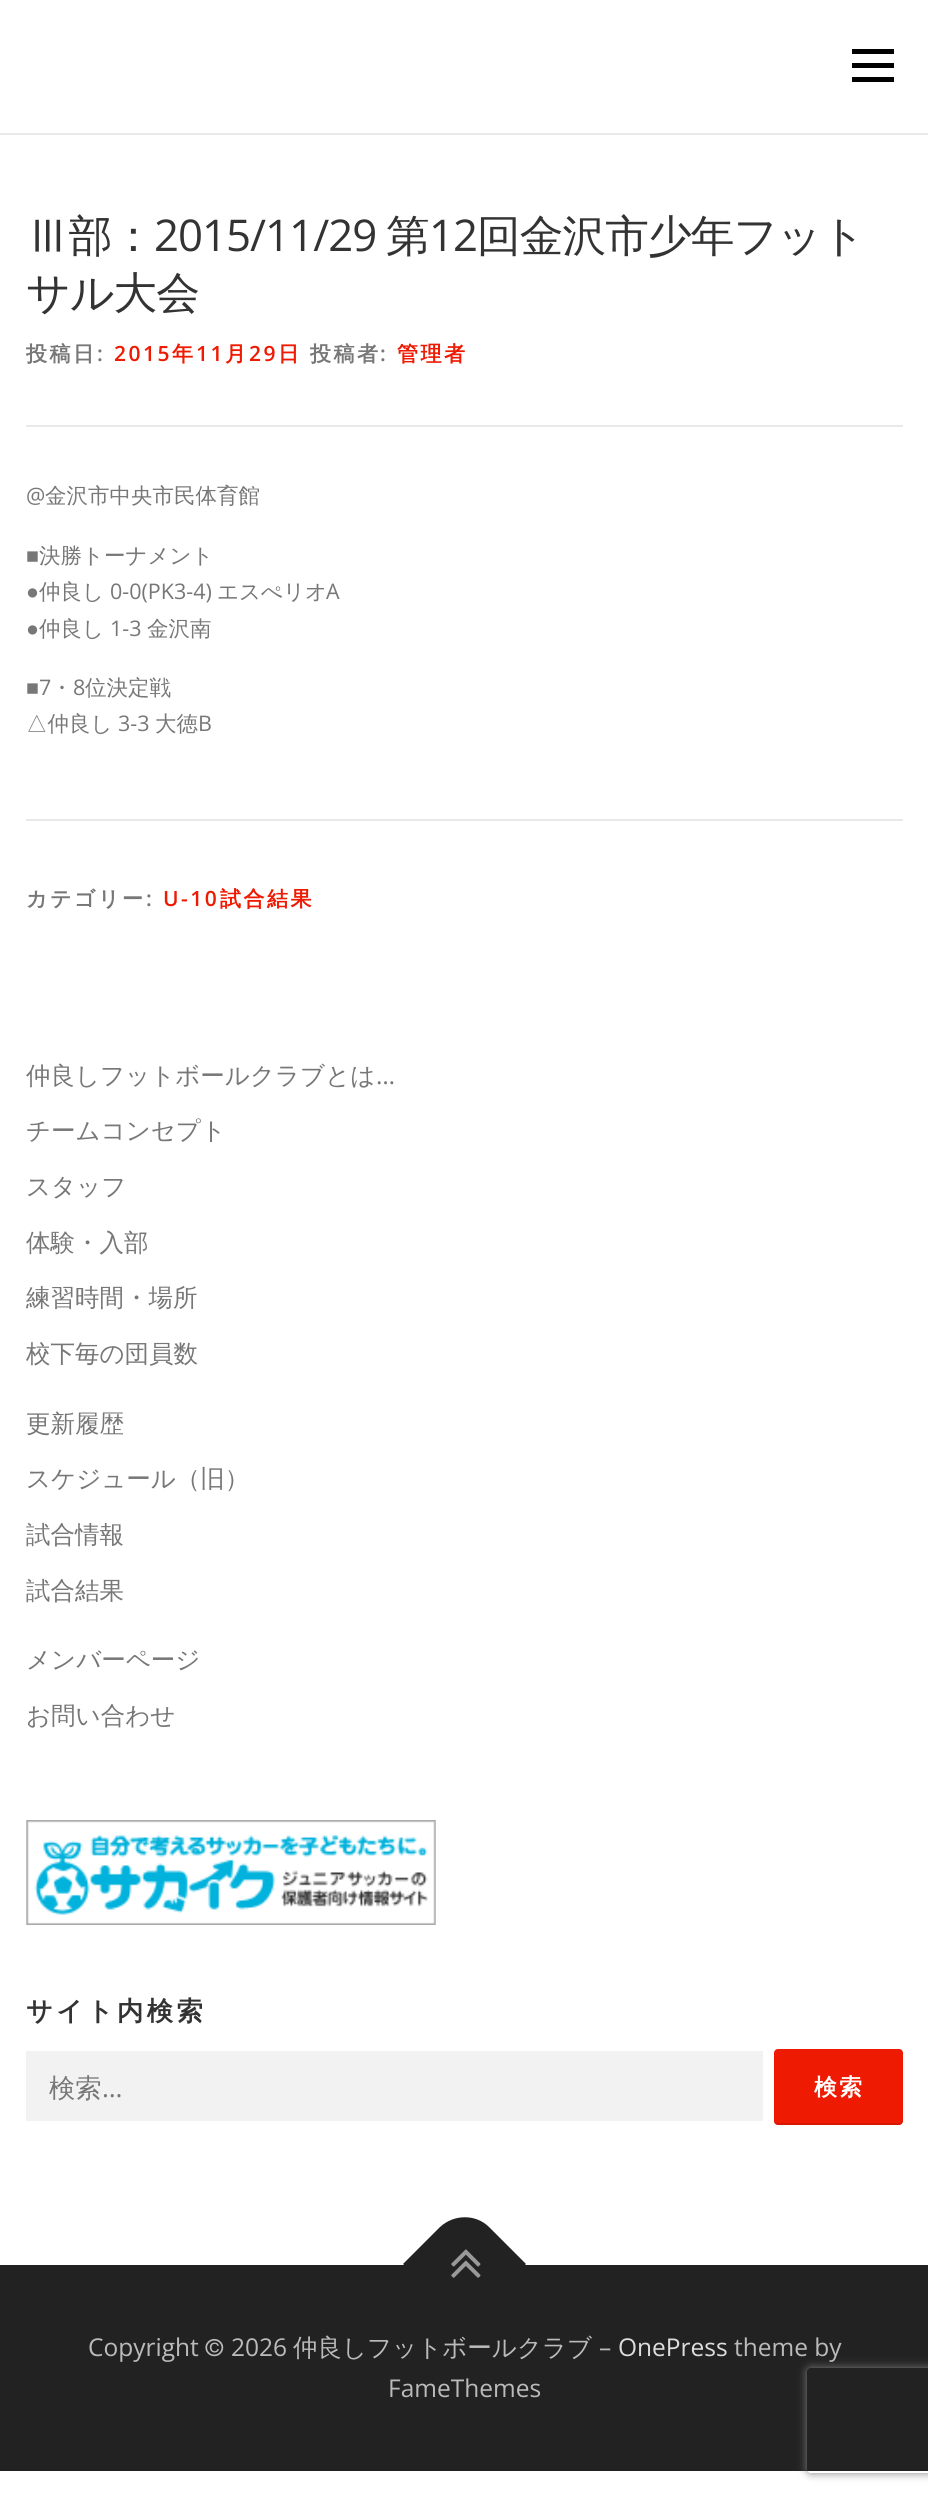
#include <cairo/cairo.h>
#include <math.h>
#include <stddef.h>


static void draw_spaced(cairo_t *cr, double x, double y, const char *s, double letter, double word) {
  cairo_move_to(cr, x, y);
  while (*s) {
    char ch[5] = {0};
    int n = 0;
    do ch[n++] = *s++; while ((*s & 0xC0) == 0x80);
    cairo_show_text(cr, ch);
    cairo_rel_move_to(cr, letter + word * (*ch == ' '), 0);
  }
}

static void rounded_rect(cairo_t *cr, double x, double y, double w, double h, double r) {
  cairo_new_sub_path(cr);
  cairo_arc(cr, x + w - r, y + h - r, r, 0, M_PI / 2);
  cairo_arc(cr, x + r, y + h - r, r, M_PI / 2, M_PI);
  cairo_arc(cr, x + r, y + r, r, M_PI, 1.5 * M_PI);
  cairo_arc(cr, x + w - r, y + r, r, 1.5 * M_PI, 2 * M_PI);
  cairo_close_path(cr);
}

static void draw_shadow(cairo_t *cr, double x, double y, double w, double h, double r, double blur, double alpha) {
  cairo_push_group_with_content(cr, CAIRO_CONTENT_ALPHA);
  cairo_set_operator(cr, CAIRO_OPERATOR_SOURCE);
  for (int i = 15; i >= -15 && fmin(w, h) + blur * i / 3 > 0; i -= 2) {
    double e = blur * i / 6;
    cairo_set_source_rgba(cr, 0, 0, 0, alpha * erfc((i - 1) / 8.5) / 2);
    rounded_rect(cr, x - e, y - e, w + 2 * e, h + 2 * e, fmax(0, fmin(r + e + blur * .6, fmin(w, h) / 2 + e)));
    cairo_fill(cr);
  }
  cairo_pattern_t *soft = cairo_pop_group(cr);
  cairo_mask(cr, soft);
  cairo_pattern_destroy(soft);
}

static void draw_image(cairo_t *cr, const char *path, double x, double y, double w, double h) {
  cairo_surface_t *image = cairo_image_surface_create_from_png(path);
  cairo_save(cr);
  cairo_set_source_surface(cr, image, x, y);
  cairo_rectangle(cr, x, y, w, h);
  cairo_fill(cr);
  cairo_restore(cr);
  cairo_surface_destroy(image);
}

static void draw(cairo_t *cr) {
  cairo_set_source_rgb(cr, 1, 1, 1);
  cairo_paint(cr);
  cairo_set_source_rgb(cr, 0, 0, 0);
  cairo_rectangle(cr, 852, 63, 42, 5);
  cairo_fill(cr);
  cairo_rectangle(cr, 852, 49, 42, 5);
  cairo_fill(cr);
  cairo_rectangle(cr, 852, 77, 42, 5);
  cairo_fill(cr);
  cairo_set_source_rgb(cr, 233 / 255.0, 233 / 255.0, 233 / 255.0);
  cairo_rectangle(cr, 0, 133, 928, 2);
  cairo_fill(cr);
  cairo_rectangle(cr, 26, 425, 877, 2);
  cairo_fill(cr);
  cairo_rectangle(cr, 26, 819, 877, 2);
  cairo_fill(cr);
  draw_image(cr, "images/1.png", 26, 1820, 410, 105);
  cairo_set_source_rgb(cr, 242 / 255.0, 242 / 255.0, 242 / 255.0);
  cairo_rectangle(cr, 26, 2051, 737, 70);
  cairo_fill(cr);
  cairo_set_source_rgb(cr, 239 / 255.0, 26 / 255.0, 2 / 255.0);
  rounded_rect(cr, 774, 2049, 129, 76, 4);
  cairo_fill(cr);
  cairo_set_source_rgba(cr, 0, 0, 0, 0.1);
  cairo_new_path(cr);
  cairo_move_to(cr, 774, 2119);
  cairo_line_to(cr, 774, 2121);
  cairo_curve_to(cr, 774, 2123, 776, 2125, 778, 2125);
  cairo_line_to(cr, 899, 2125);
  cairo_curve_to(cr, 901, 2125, 903, 2123, 903, 2121);
  cairo_line_to(cr, 903, 2119);
  cairo_curve_to(cr, 903, 2121, 901, 2123, 900, 2123);
  cairo_line_to(cr, 777, 2123);
  cairo_curve_to(cr, 775, 2123, 774, 2121, 774, 2119);
  cairo_close_path(cr);
  cairo_fill(cr);
  cairo_set_source_rgb(cr, 34 / 255.0, 34 / 255.0, 34 / 255.0);
  cairo_rectangle(cr, 0, 2265, 928, 206);
  cairo_fill(cr);
  cairo_new_path(cr);
  cairo_move_to(cr, 403, 2264);
  cairo_line_to(cr, 440, 2227);
  cairo_curve_to(cr, 454, 2214, 476, 2214, 489, 2227);
  cairo_line_to(cr, 526, 2264);
  cairo_line_to(cr, 465, 2326);
  cairo_close_path(cr);
  cairo_fill(cr);
  draw_image(cr, "images/2.png", 451, 2249, 30, 29);
  cairo_save(cr);
  cairo_set_fill_rule(cr, CAIRO_FILL_RULE_EVEN_ODD);
  cairo_new_path(cr);
  cairo_move_to(cr, 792, 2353);
  cairo_line_to(cr, 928, 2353);
  cairo_line_to(cr, 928, 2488);
  cairo_line_to(cr, 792, 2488);
  cairo_close_path(cr);
  cairo_move_to(cr, 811, 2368);
  cairo_line_to(cr, 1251, 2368);
  cairo_curve_to(cr, 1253, 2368, 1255, 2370, 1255, 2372);
  cairo_line_to(cr, 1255, 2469);
  cairo_curve_to(cr, 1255, 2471, 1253, 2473, 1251, 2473);
  cairo_line_to(cr, 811, 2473);
  cairo_curve_to(cr, 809, 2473, 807, 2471, 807, 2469);
  cairo_line_to(cr, 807, 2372);
  cairo_curve_to(cr, 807, 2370, 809, 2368, 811, 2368);
  cairo_close_path(cr);
  cairo_clip(cr);
  cairo_set_source_rgb(cr, 128 / 255.0, 128 / 255.0, 128 / 255.0);
  draw_shadow(cr, 807, 2368, 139, 105, 4, 4.5, 1);
  cairo_restore(cr);
  cairo_select_font_face(cr, "WenQuanYi Zen Hei Medium", CAIRO_FONT_SLANT_NORMAL, CAIRO_FONT_WEIGHT_NORMAL);
  cairo_set_font_size(cr, 43.75);
  cairo_set_source_rgb(cr, 51 / 255.0, 51 / 255.0, 51 / 255.0);
  draw_spaced(cr, 26, 251, "Ⅲ部：", -1, 0);
  cairo_select_font_face(cr, "Open Sans", CAIRO_FONT_SLANT_NORMAL, CAIRO_FONT_WEIGHT_NORMAL);
  draw_spaced(cr, 154, 251, "2015/11/29", -1, 0);
  cairo_select_font_face(cr, "WenQuanYi Zen Hei Medium", CAIRO_FONT_SLANT_NORMAL, CAIRO_FONT_WEIGHT_NORMAL);
  draw_spaced(cr, 386, 251, "第", -1, 0);
  cairo_select_font_face(cr, "Open Sans", CAIRO_FONT_SLANT_NORMAL, CAIRO_FONT_WEIGHT_NORMAL);
  draw_spaced(cr, 429, 251, "12", -1, 0);
  cairo_select_font_face(cr, "WenQuanYi Zen Hei Medium", CAIRO_FONT_SLANT_NORMAL, CAIRO_FONT_WEIGHT_NORMAL);
  draw_spaced(cr, 477, 251, "回金沢市少年フット", -1, 0);
  draw_spaced(cr, 26, 308, "サル大会", -1, 0);
  cairo_select_font_face(cr, "WenQuanYi Zen Hei", CAIRO_FONT_SLANT_NORMAL, CAIRO_FONT_WEIGHT_BOLD);
  cairo_set_font_size(cr, 21);
  cairo_set_source_rgb(cr, 119 / 255.0, 119 / 255.0, 119 / 255.0);
  draw_spaced(cr, 26, 361, "投稿日", 2.5, 0);
  cairo_select_font_face(cr, "Open Sans SemiBold", CAIRO_FONT_SLANT_NORMAL, CAIRO_FONT_WEIGHT_NORMAL);
  draw_spaced(cr, 97, 361, ":", 2.5, 0);
  cairo_set_source_rgb(cr, 239 / 255.0, 26 / 255.0, 2 / 255.0);
  draw_spaced(cr, 114, 361, "2015", 2.5, 0);
  cairo_select_font_face(cr, "WenQuanYi Zen Hei", CAIRO_FONT_SLANT_NORMAL, CAIRO_FONT_WEIGHT_BOLD);
  draw_spaced(cr, 172, 361, "年", 2.5, 0);
  cairo_select_font_face(cr, "Open Sans SemiBold", CAIRO_FONT_SLANT_NORMAL, CAIRO_FONT_WEIGHT_NORMAL);
  draw_spaced(cr, 196, 361, "11", 2.5, 0);
  cairo_select_font_face(cr, "WenQuanYi Zen Hei", CAIRO_FONT_SLANT_NORMAL, CAIRO_FONT_WEIGHT_BOLD);
  draw_spaced(cr, 225, 361, "月", 2.5, 0);
  cairo_select_font_face(cr, "Open Sans SemiBold", CAIRO_FONT_SLANT_NORMAL, CAIRO_FONT_WEIGHT_NORMAL);
  draw_spaced(cr, 249, 361, "29", 2.5, 0);
  cairo_select_font_face(cr, "WenQuanYi Zen Hei", CAIRO_FONT_SLANT_NORMAL, CAIRO_FONT_WEIGHT_BOLD);
  draw_spaced(cr, 278, 361, "日", 2.5, 0);
  cairo_set_source_rgb(cr, 119 / 255.0, 119 / 255.0, 119 / 255.0);
  draw_spaced(cr, 310, 361, "投稿者", 2.5, 0);
  cairo_select_font_face(cr, "Open Sans SemiBold", CAIRO_FONT_SLANT_NORMAL, CAIRO_FONT_WEIGHT_NORMAL);
  draw_spaced(cr, 380, 361, ":", 2.5, 0);
  cairo_select_font_face(cr, "WenQuanYi Zen Hei", CAIRO_FONT_SLANT_NORMAL, CAIRO_FONT_WEIGHT_BOLD);
  cairo_set_source_rgb(cr, 239 / 255.0, 26 / 255.0, 2 / 255.0);
  draw_spaced(cr, 397, 361, "管理者", 2.5, 0);
  cairo_select_font_face(cr, "Open Sans", CAIRO_FONT_SLANT_NORMAL, CAIRO_FONT_WEIGHT_NORMAL);
  cairo_set_font_size(cr, 21.5);
  cairo_set_source_rgb(cr, 119 / 255.0, 119 / 255.0, 119 / 255.0);
  cairo_move_to(cr, 26, 503);
  cairo_show_text(cr, "@");
  cairo_select_font_face(cr, "WenQuanYi Zen Hei Medium", CAIRO_FONT_SLANT_NORMAL, CAIRO_FONT_WEIGHT_NORMAL);
  cairo_move_to(cr, 45, 503);
  cairo_show_text(cr, "金沢市中央市民体育館");
  cairo_select_font_face(cr, "Liberation Sans", CAIRO_FONT_SLANT_NORMAL, CAIRO_FONT_WEIGHT_NORMAL);
  cairo_move_to(cr, 26, 563);
  cairo_show_text(cr, "■");
  cairo_select_font_face(cr, "WenQuanYi Zen Hei Medium", CAIRO_FONT_SLANT_NORMAL, CAIRO_FONT_WEIGHT_NORMAL);
  cairo_move_to(cr, 39, 563);
  cairo_show_text(cr, "決勝トーナメント");
  cairo_select_font_face(cr, "Liberation Sans", CAIRO_FONT_SLANT_NORMAL, CAIRO_FONT_WEIGHT_NORMAL);
  cairo_move_to(cr, 26, 599);
  cairo_show_text(cr, "●");
  cairo_select_font_face(cr, "WenQuanYi Zen Hei Medium", CAIRO_FONT_SLANT_NORMAL, CAIRO_FONT_WEIGHT_NORMAL);
  cairo_move_to(cr, 39, 599);
  cairo_show_text(cr, "仲良し");
  cairo_select_font_face(cr, "Open Sans", CAIRO_FONT_SLANT_NORMAL, CAIRO_FONT_WEIGHT_NORMAL);
  cairo_move_to(cr, 110, 599);
  cairo_show_text(cr, "0-0(PK3-4)");
  cairo_select_font_face(cr, "WenQuanYi Zen Hei Medium", CAIRO_FONT_SLANT_NORMAL, CAIRO_FONT_WEIGHT_NORMAL);
  cairo_move_to(cr, 217, 599);
  cairo_show_text(cr, "エスぺリオ");
  cairo_select_font_face(cr, "Open Sans", CAIRO_FONT_SLANT_NORMAL, CAIRO_FONT_WEIGHT_NORMAL);
  cairo_move_to(cr, 326, 599);
  cairo_show_text(cr, "A");
  cairo_select_font_face(cr, "Liberation Sans", CAIRO_FONT_SLANT_NORMAL, CAIRO_FONT_WEIGHT_NORMAL);
  cairo_move_to(cr, 26, 636);
  cairo_show_text(cr, "●");
  cairo_select_font_face(cr, "WenQuanYi Zen Hei Medium", CAIRO_FONT_SLANT_NORMAL, CAIRO_FONT_WEIGHT_NORMAL);
  cairo_move_to(cr, 39, 636);
  cairo_show_text(cr, "仲良し");
  cairo_select_font_face(cr, "Open Sans", CAIRO_FONT_SLANT_NORMAL, CAIRO_FONT_WEIGHT_NORMAL);
  cairo_move_to(cr, 110, 636);
  cairo_show_text(cr, "1-3");
  cairo_select_font_face(cr, "WenQuanYi Zen Hei Medium", CAIRO_FONT_SLANT_NORMAL, CAIRO_FONT_WEIGHT_NORMAL);
  cairo_move_to(cr, 147, 636);
  cairo_show_text(cr, "金沢南");
  cairo_select_font_face(cr, "Liberation Sans", CAIRO_FONT_SLANT_NORMAL, CAIRO_FONT_WEIGHT_NORMAL);
  cairo_move_to(cr, 26, 695);
  cairo_show_text(cr, "■");
  cairo_select_font_face(cr, "Open Sans", CAIRO_FONT_SLANT_NORMAL, CAIRO_FONT_WEIGHT_NORMAL);
  cairo_move_to(cr, 39, 695);
  cairo_show_text(cr, "7");
  cairo_select_font_face(cr, "WenQuanYi Zen Hei Medium", CAIRO_FONT_SLANT_NORMAL, CAIRO_FONT_WEIGHT_NORMAL);
  cairo_move_to(cr, 51, 695);
  cairo_show_text(cr, "・");
  cairo_select_font_face(cr, "Open Sans", CAIRO_FONT_SLANT_NORMAL, CAIRO_FONT_WEIGHT_NORMAL);
  cairo_move_to(cr, 73, 695);
  cairo_show_text(cr, "8");
  cairo_select_font_face(cr, "WenQuanYi Zen Hei Medium", CAIRO_FONT_SLANT_NORMAL, CAIRO_FONT_WEIGHT_NORMAL);
  cairo_move_to(cr, 85, 695);
  cairo_show_text(cr, "位決定戦");
  cairo_move_to(cr, 26, 731);
  cairo_show_text(cr, "△仲良し");
  cairo_select_font_face(cr, "Open Sans", CAIRO_FONT_SLANT_NORMAL, CAIRO_FONT_WEIGHT_NORMAL);
  cairo_move_to(cr, 118, 731);
  cairo_show_text(cr, "3-3");
  cairo_select_font_face(cr, "WenQuanYi Zen Hei Medium", CAIRO_FONT_SLANT_NORMAL, CAIRO_FONT_WEIGHT_NORMAL);
  cairo_move_to(cr, 155, 731);
  cairo_show_text(cr, "大徳");
  cairo_select_font_face(cr, "Open Sans", CAIRO_FONT_SLANT_NORMAL, CAIRO_FONT_WEIGHT_NORMAL);
  cairo_move_to(cr, 198, 731);
  cairo_show_text(cr, "B");
  cairo_select_font_face(cr, "WenQuanYi Zen Hei", CAIRO_FONT_SLANT_NORMAL, CAIRO_FONT_WEIGHT_BOLD);
  cairo_set_font_size(cr, 21);
  draw_spaced(cr, 26, 906, "カテゴリー", 2.5, 0);
  cairo_select_font_face(cr, "Open Sans SemiBold", CAIRO_FONT_SLANT_NORMAL, CAIRO_FONT_WEIGHT_NORMAL);
  draw_spaced(cr, 146, 906, ":", 2.5, 0);
  cairo_set_source_rgb(cr, 239 / 255.0, 26 / 255.0, 2 / 255.0);
  draw_spaced(cr, 163, 906, "U-10", 2.5, 0);
  cairo_select_font_face(cr, "WenQuanYi Zen Hei", CAIRO_FONT_SLANT_NORMAL, CAIRO_FONT_WEIGHT_BOLD);
  draw_spaced(cr, 220, 906, "試合結果", 2.5, 0);
  cairo_select_font_face(cr, "WenQuanYi Zen Hei Medium", CAIRO_FONT_SLANT_NORMAL, CAIRO_FONT_WEIGHT_NORMAL);
  cairo_set_font_size(cr, 24.5);
  cairo_set_source_rgb(cr, 119 / 255.0, 119 / 255.0, 119 / 255.0);
  cairo_move_to(cr, 26, 1084);
  cairo_show_text(cr, "仲良しフットボールクラブとは");
  cairo_select_font_face(cr, "Open Sans", CAIRO_FONT_SLANT_NORMAL, CAIRO_FONT_WEIGHT_NORMAL);
  cairo_move_to(cr, 376, 1084);
  cairo_show_text(cr, "…");
  cairo_select_font_face(cr, "WenQuanYi Zen Hei Medium", CAIRO_FONT_SLANT_NORMAL, CAIRO_FONT_WEIGHT_NORMAL);
  cairo_move_to(cr, 26, 1139);
  cairo_show_text(cr, "チームコンセプト");
  cairo_move_to(cr, 26, 1195);
  cairo_show_text(cr, "スタッフ");
  cairo_move_to(cr, 26, 1251);
  cairo_show_text(cr, "体験・入部");
  cairo_move_to(cr, 26, 1306);
  cairo_show_text(cr, "練習時間・場所");
  cairo_move_to(cr, 26, 1362);
  cairo_show_text(cr, "校下毎の団員数");
  cairo_move_to(cr, 26, 1432);
  cairo_show_text(cr, "更新履歴");
  cairo_move_to(cr, 26, 1487);
  cairo_show_text(cr, "スケジュール（旧）");
  cairo_move_to(cr, 26, 1543);
  cairo_show_text(cr, "試合情報");
  cairo_move_to(cr, 26, 1599);
  cairo_show_text(cr, "試合結果");
  cairo_move_to(cr, 26, 1668);
  cairo_show_text(cr, "メンバーページ");
  cairo_move_to(cr, 26, 1724);
  cairo_show_text(cr, "お問い合わせ");
  cairo_select_font_face(cr, "WenQuanYi Zen Hei", CAIRO_FONT_SLANT_NORMAL, CAIRO_FONT_WEIGHT_BOLD);
  cairo_set_font_size(cr, 26.25);
  cairo_set_source_rgb(cr, 51 / 255.0, 51 / 255.0, 51 / 255.0);
  draw_spaced(cr, 26, 2020, "サイト内検索", 3.5, 0);
  cairo_select_font_face(cr, "WenQuanYi Zen Hei Medium", CAIRO_FONT_SLANT_NORMAL, CAIRO_FONT_WEIGHT_NORMAL);
  cairo_set_source_rgb(cr, 119 / 255.0, 119 / 255.0, 119 / 255.0);
  cairo_move_to(cr, 49, 2097);
  cairo_show_text(cr, "検索");
  cairo_select_font_face(cr, "Open Sans", CAIRO_FONT_SLANT_NORMAL, CAIRO_FONT_WEIGHT_NORMAL);
  cairo_move_to(cr, 102, 2097);
  cairo_show_text(cr, "…");
  cairo_select_font_face(cr, "WenQuanYi Zen Hei", CAIRO_FONT_SLANT_NORMAL, CAIRO_FONT_WEIGHT_BOLD);
  cairo_set_font_size(cr, 23);
  cairo_set_source_rgb(cr, 1, 1, 1);
  draw_spaced(cr, 814, 2095, "検索", 2, 0);
  cairo_select_font_face(cr, "Open Sans", CAIRO_FONT_SLANT_NORMAL, CAIRO_FONT_WEIGHT_NORMAL);
  cairo_set_font_size(cr, 24.5);
  cairo_set_source_rgb(cr, 187 / 255.0, 187 / 255.0, 187 / 255.0);
  cairo_move_to(cr, 88, 2356);
  cairo_show_text(cr, "Copyright");
  cairo_select_font_face(cr, "WenQuanYi Zen Hei Medium", CAIRO_FONT_SLANT_NORMAL, CAIRO_FONT_WEIGHT_NORMAL);
  cairo_move_to(cr, 205, 2356);
  cairo_show_text(cr, "©");
  cairo_select_font_face(cr, "Open Sans", CAIRO_FONT_SLANT_NORMAL, CAIRO_FONT_WEIGHT_NORMAL);
  cairo_move_to(cr, 231, 2356);
  cairo_show_text(cr, "2026");
  cairo_select_font_face(cr, "WenQuanYi Zen Hei Medium", CAIRO_FONT_SLANT_NORMAL, CAIRO_FONT_WEIGHT_NORMAL);
  cairo_move_to(cr, 293, 2356);
  cairo_show_text(cr, "仲良しフットボールクラブ");
  cairo_select_font_face(cr, "Open Sans", CAIRO_FONT_SLANT_NORMAL, CAIRO_FONT_WEIGHT_NORMAL);
  cairo_move_to(cr, 599, 2356);
  cairo_show_text(cr, "–");
  cairo_set_source_rgb(cr, 221 / 255.0, 221 / 255.0, 221 / 255.0);
  cairo_move_to(cr, 618, 2356);
  cairo_show_text(cr, "OnePress");
  cairo_set_source_rgb(cr, 187 / 255.0, 187 / 255.0, 187 / 255.0);
  cairo_move_to(cr, 734, 2356);
  cairo_show_text(cr, "theme by");
  cairo_move_to(cr, 388, 2397);
  cairo_show_text(cr, "FameThemes");
}

int main(void) {
  cairo_surface_t *surface = cairo_image_surface_create(CAIRO_FORMAT_RGB24, 928, 2497);
  cairo_t *cr = cairo_create(surface);
  cairo_font_options_t *options = cairo_font_options_create();
  cairo_font_options_set_hint_metrics(options, CAIRO_HINT_METRICS_OFF);
  cairo_font_options_set_hint_style(options, CAIRO_HINT_STYLE_NONE);
  cairo_set_font_options(cr, options);
  cairo_set_miter_limit(cr, 4);
  draw(cr);
  cairo_surface_write_to_png(surface, "out.png");
  cairo_font_options_destroy(options);
  cairo_destroy(cr);
  cairo_surface_destroy(surface);
  return 0;
}
